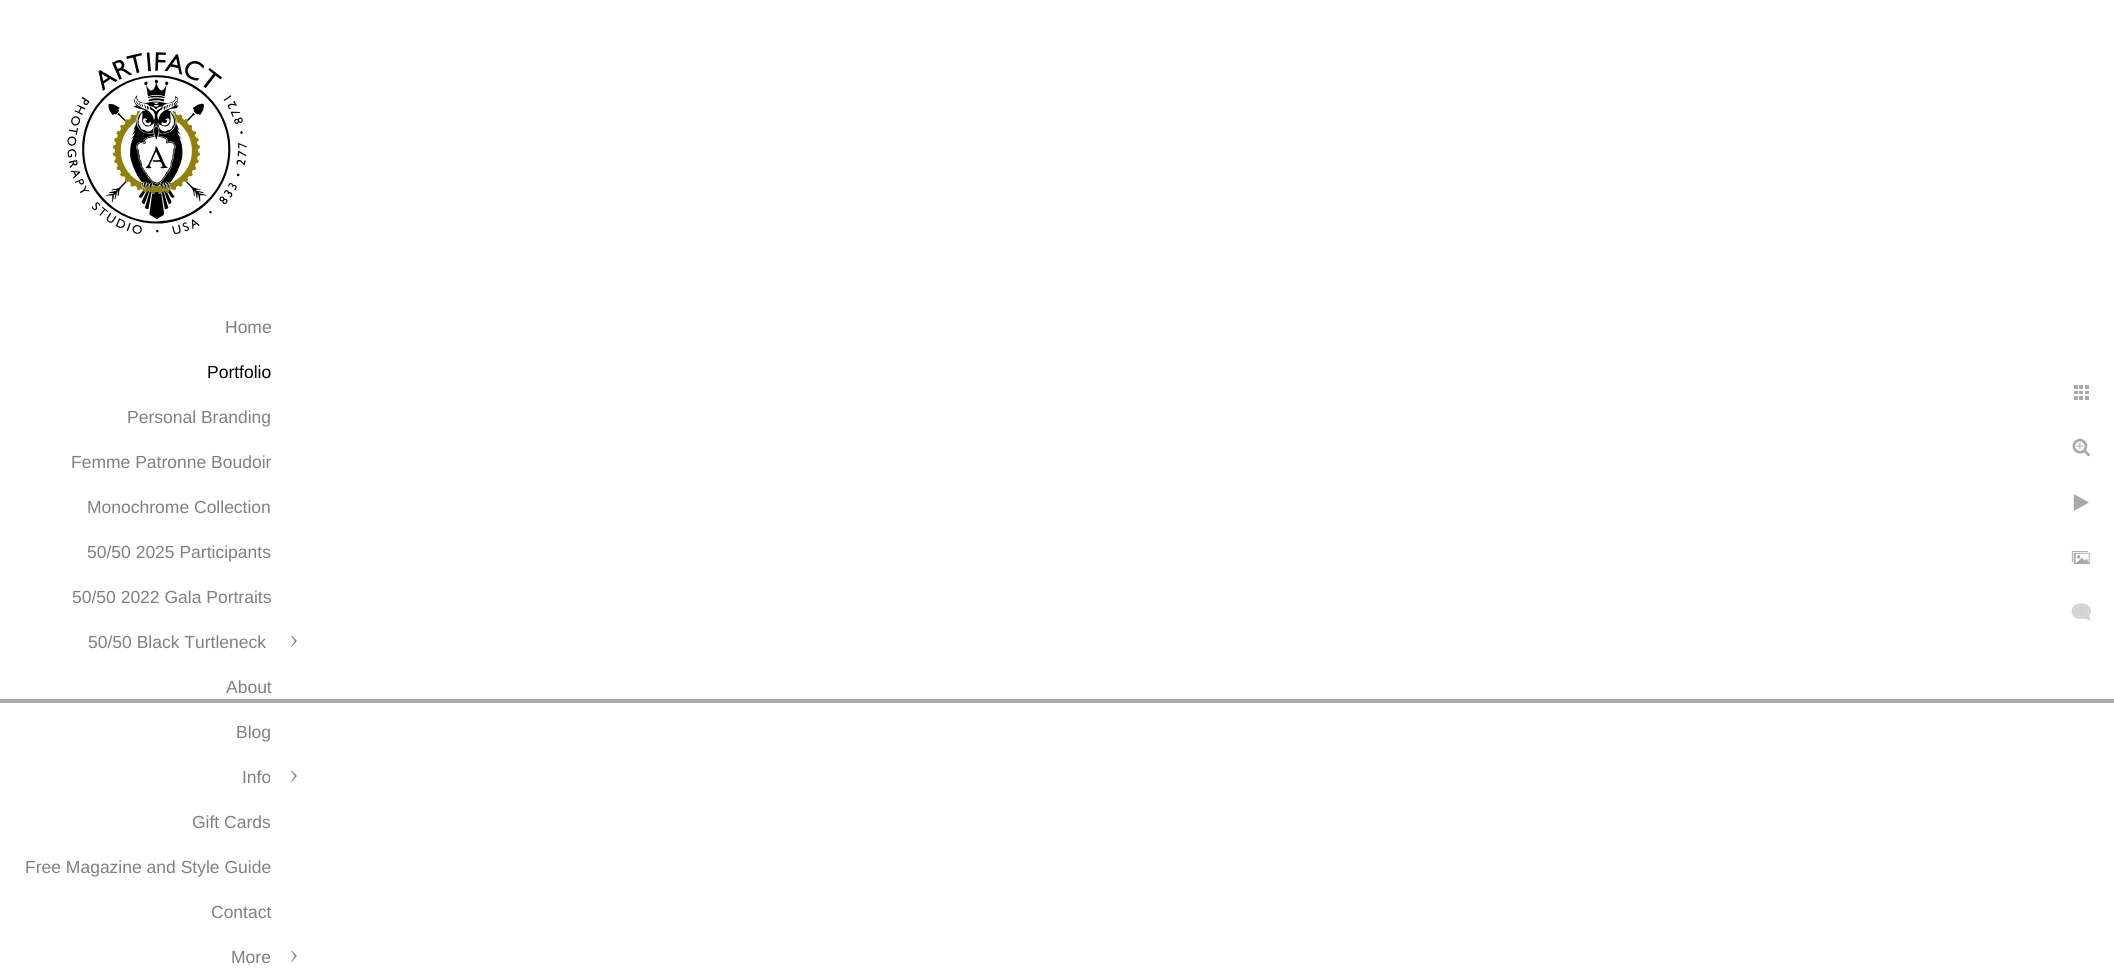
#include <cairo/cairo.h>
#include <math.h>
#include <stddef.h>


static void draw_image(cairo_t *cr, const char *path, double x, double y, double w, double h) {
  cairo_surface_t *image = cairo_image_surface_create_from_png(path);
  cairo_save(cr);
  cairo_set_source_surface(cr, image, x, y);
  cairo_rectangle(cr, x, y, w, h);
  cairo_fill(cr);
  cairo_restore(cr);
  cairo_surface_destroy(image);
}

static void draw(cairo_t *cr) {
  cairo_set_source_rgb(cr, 1, 1, 1);
  cairo_paint(cr);
  draw_image(cr, "images/1.png", 67, 52, 180, 182);
  draw_image(cr, "images/2.png", 291, 635, 6, 13);
  draw_image(cr, "images/2.png", 291, 770, 6, 13);
  draw_image(cr, "images/2.png", 291, 950, 6, 13);
  draw_image(cr, "images/3.png", 2074, 385, 15, 15);
  draw_image(cr, "images/4.png", 2072, 438, 18, 19);
  draw_image(cr, "images/5.png", 2073, 494, 16, 17);
  draw_image(cr, "images/6.png", 2071, 550, 19, 15);
  draw_image(cr, "images/7.png", 2071, 603, 20, 18);
  cairo_set_source_rgb(cr, 169 / 255.0, 169 / 255.0, 169 / 255.0);
  cairo_rectangle(cr, 0, 699, 2114, 4);
  cairo_fill(cr);
  cairo_select_font_face(cr, "Liberation Sans", CAIRO_FONT_SLANT_NORMAL, CAIRO_FONT_WEIGHT_NORMAL);
  cairo_set_font_size(cr, 17.5);
  cairo_set_source_rgb(cr, 128 / 255.0, 128 / 255.0, 128 / 255.0);
  cairo_move_to(cr, 225, 333);
  cairo_show_text(cr, "Home");
  cairo_set_source_rgb(cr, 0, 0, 0);
  cairo_move_to(cr, 207, 378);
  cairo_show_text(cr, "Portfolio");
  cairo_set_source_rgb(cr, 128 / 255.0, 128 / 255.0, 128 / 255.0);
  cairo_move_to(cr, 127, 423);
  cairo_show_text(cr, "Personal Branding");
  cairo_move_to(cr, 71, 468);
  cairo_show_text(cr, "Femme Patronne Boudoir");
  cairo_move_to(cr, 87, 513);
  cairo_show_text(cr, "Monochrome Collection");
  cairo_move_to(cr, 87, 558);
  cairo_show_text(cr, "50/50 2025 Participants");
  cairo_move_to(cr, 72, 603);
  cairo_show_text(cr, "50/50 2022 Gala Portraits");
  cairo_move_to(cr, 88, 648);
  cairo_show_text(cr, "50/50 Black Turtleneck");
  cairo_move_to(cr, 226, 693);
  cairo_show_text(cr, "About");
  cairo_move_to(cr, 236, 738);
  cairo_show_text(cr, "Blog");
  cairo_move_to(cr, 242, 783);
  cairo_show_text(cr, "Info");
  cairo_move_to(cr, 192, 828);
  cairo_show_text(cr, "Gift Cards");
  cairo_move_to(cr, 25, 873);
  cairo_show_text(cr, "Free Magazine and Style Guide");
  cairo_move_to(cr, 211, 918);
  cairo_show_text(cr, "Contact");
  cairo_move_to(cr, 231, 963);
  cairo_show_text(cr, "More");
}

int main(void) {
  cairo_surface_t *surface = cairo_image_surface_create(CAIRO_FORMAT_RGB24, 2114, 978);
  cairo_t *cr = cairo_create(surface);
  cairo_font_options_t *options = cairo_font_options_create();
  cairo_font_options_set_hint_metrics(options, CAIRO_HINT_METRICS_OFF);
  cairo_font_options_set_hint_style(options, CAIRO_HINT_STYLE_NONE);
  cairo_set_font_options(cr, options);
  cairo_set_miter_limit(cr, 4);
  draw(cr);
  cairo_surface_write_to_png(surface, "out.png");
  cairo_font_options_destroy(options);
  cairo_destroy(cr);
  cairo_surface_destroy(surface);
  return 0;
}
